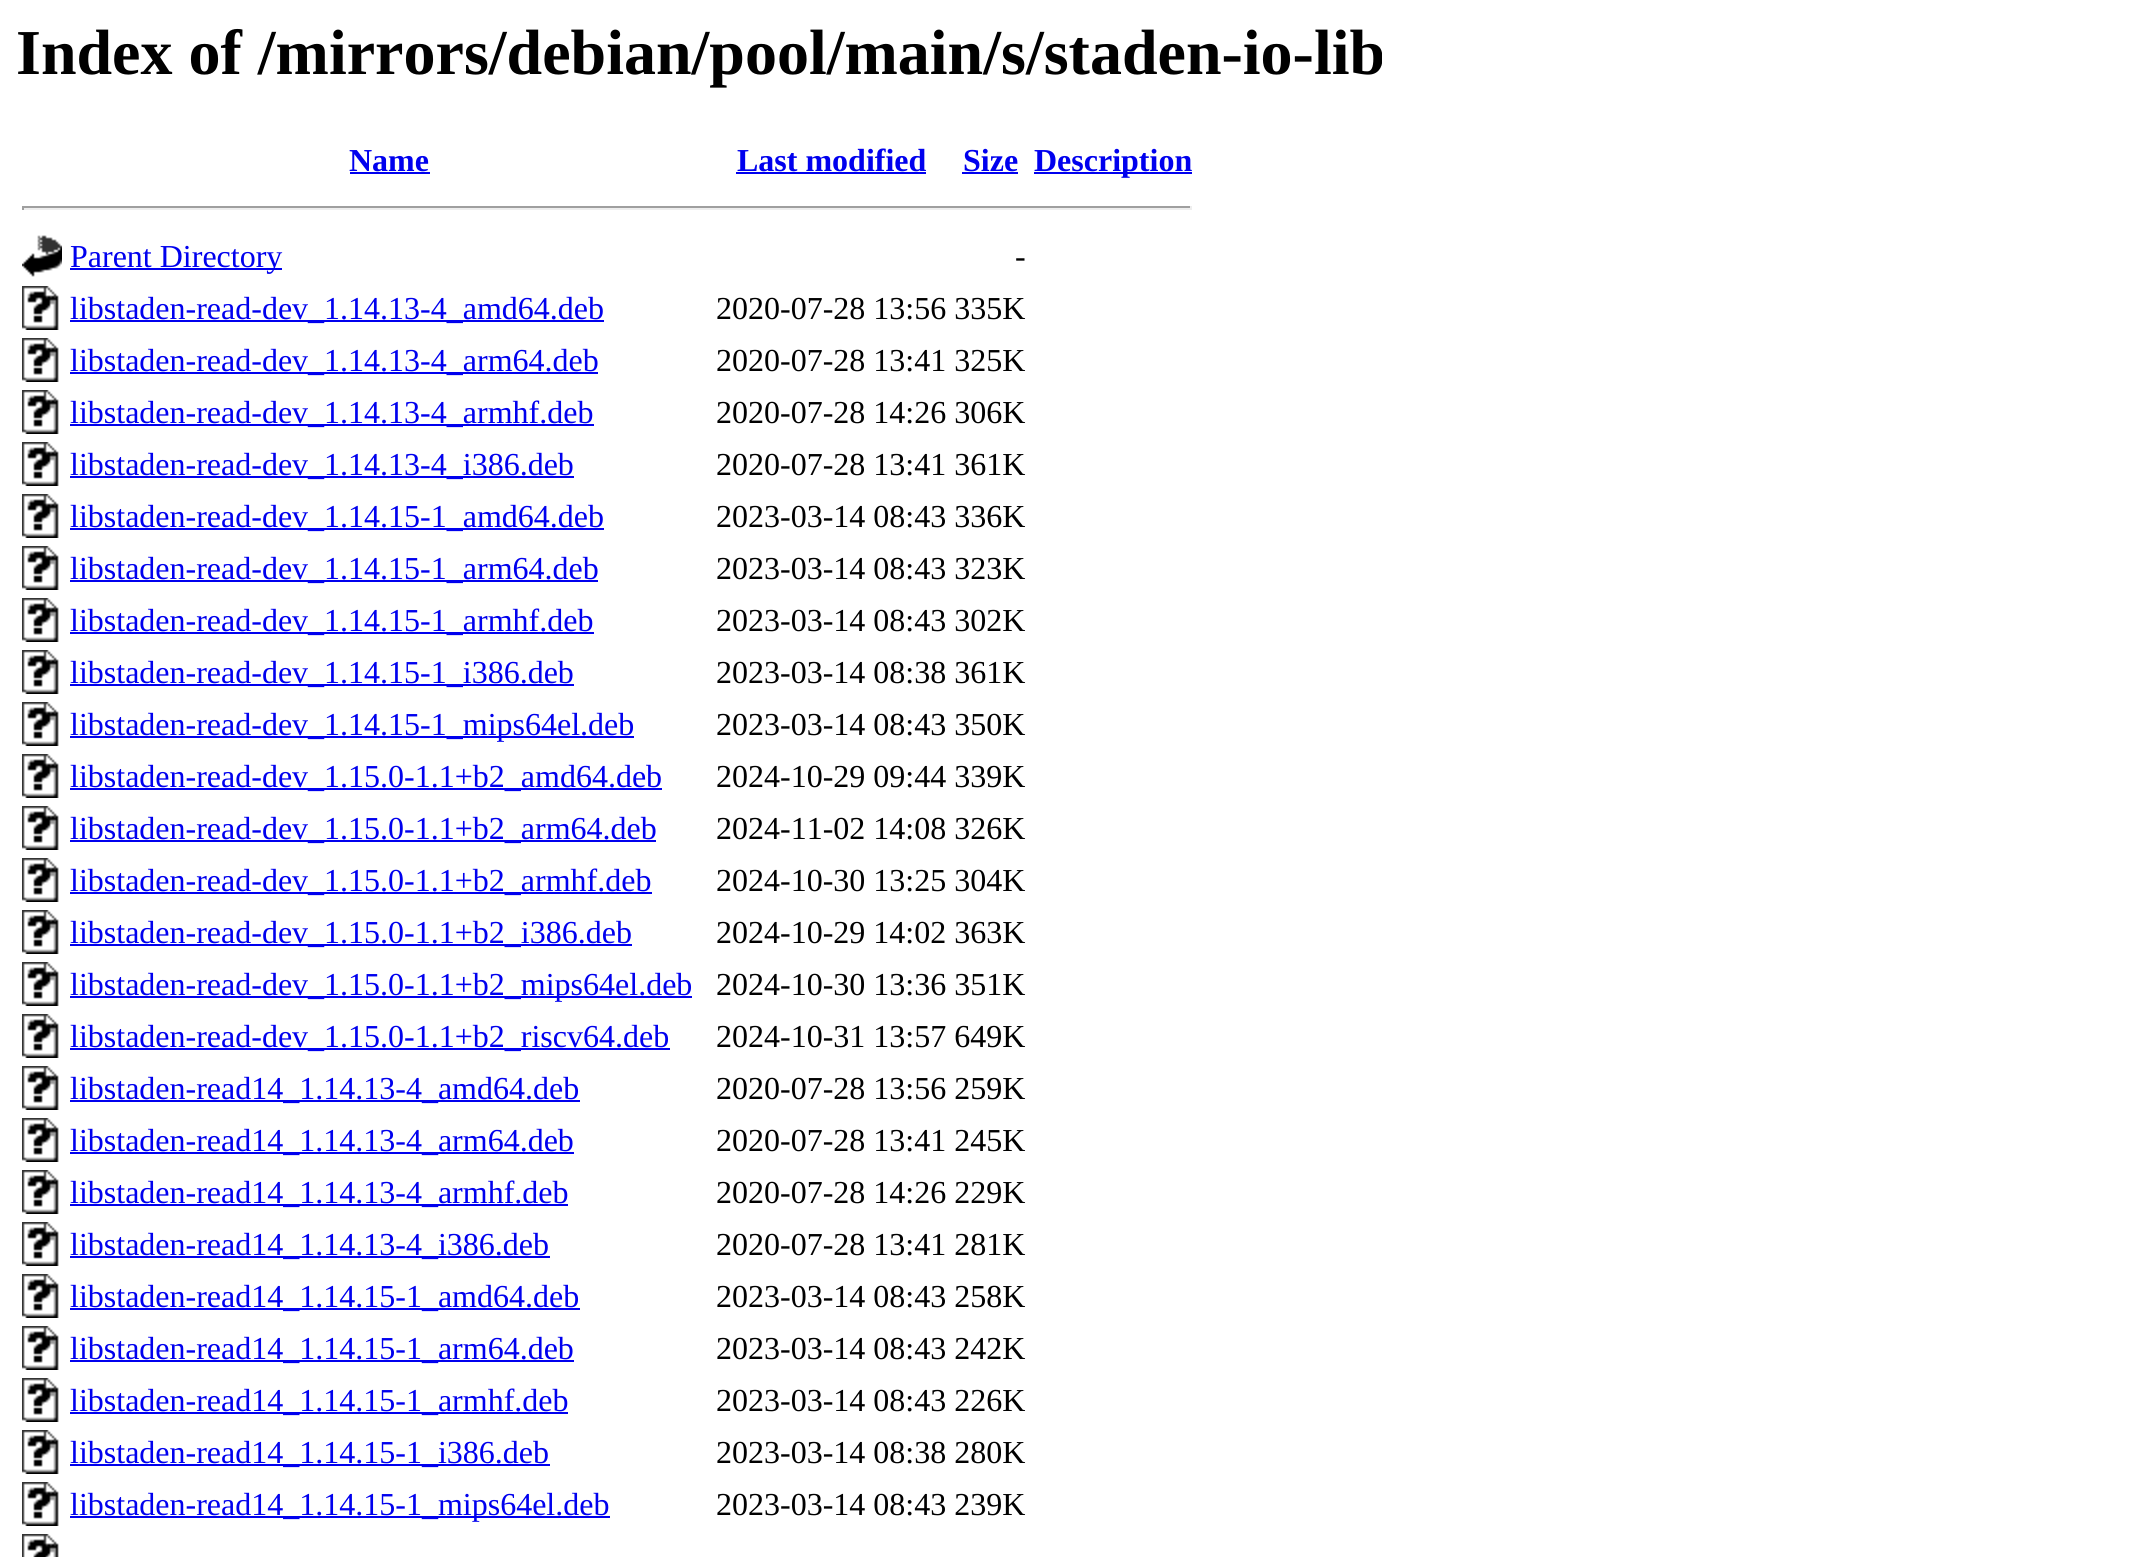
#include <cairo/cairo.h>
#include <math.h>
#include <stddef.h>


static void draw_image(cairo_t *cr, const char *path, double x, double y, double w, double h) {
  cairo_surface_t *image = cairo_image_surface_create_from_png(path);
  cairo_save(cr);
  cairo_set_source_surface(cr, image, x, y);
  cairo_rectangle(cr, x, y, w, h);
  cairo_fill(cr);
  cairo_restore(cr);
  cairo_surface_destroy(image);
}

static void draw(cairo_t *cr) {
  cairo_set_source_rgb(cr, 1, 1, 1);
  cairo_paint(cr);
  cairo_set_source_rgb(cr, 0, 0, 238 / 255.0);
  cairo_rectangle(cr, 350, 172, 80, 2);
  cairo_fill(cr);
  cairo_rectangle(cr, 736, 172, 190, 2);
  cairo_fill(cr);
  cairo_rectangle(cr, 962, 172, 56, 2);
  cairo_fill(cr);
  cairo_rectangle(cr, 1034, 172, 158, 2);
  cairo_fill(cr);
  cairo_set_source_rgb(cr, 159 / 255.0, 159 / 255.0, 159 / 255.0);
  cairo_rectangle(cr, 22, 206, 1170, 2);
  cairo_fill(cr);
  cairo_set_source_rgb(cr, 238 / 255.0, 238 / 255.0, 238 / 255.0);
  cairo_rectangle(cr, 1190, 206, 2, 4);
  cairo_fill(cr);
  cairo_rectangle(cr, 22, 208, 1170, 2);
  cairo_fill(cr);
  cairo_set_source_rgb(cr, 159 / 255.0, 159 / 255.0, 159 / 255.0);
  cairo_rectangle(cr, 22, 206, 2, 4);
  cairo_fill(cr);
  draw_image(cr, "images/1.png", 22, 235, 40, 42);
  cairo_set_source_rgb(cr, 0, 0, 238 / 255.0);
  cairo_rectangle(cr, 70, 268, 212, 2);
  cairo_fill(cr);
  draw_image(cr, "images/2.png", 22, 286, 37, 44);
  cairo_rectangle(cr, 70, 320, 534, 2);
  cairo_fill(cr);
  draw_image(cr, "images/2.png", 22, 338, 37, 44);
  cairo_rectangle(cr, 70, 372, 528, 2);
  cairo_fill(cr);
  draw_image(cr, "images/2.png", 22, 390, 37, 44);
  cairo_rectangle(cr, 70, 424, 524, 2);
  cairo_fill(cr);
  draw_image(cr, "images/2.png", 22, 442, 37, 44);
  cairo_rectangle(cr, 70, 476, 504, 2);
  cairo_fill(cr);
  draw_image(cr, "images/2.png", 22, 494, 37, 44);
  cairo_rectangle(cr, 70, 528, 534, 2);
  cairo_fill(cr);
  draw_image(cr, "images/2.png", 22, 546, 37, 44);
  cairo_rectangle(cr, 70, 580, 528, 2);
  cairo_fill(cr);
  draw_image(cr, "images/2.png", 22, 598, 37, 44);
  cairo_rectangle(cr, 70, 632, 524, 2);
  cairo_fill(cr);
  draw_image(cr, "images/2.png", 22, 650, 37, 44);
  cairo_rectangle(cr, 70, 684, 504, 2);
  cairo_fill(cr);
  draw_image(cr, "images/2.png", 22, 702, 37, 44);
  cairo_rectangle(cr, 70, 736, 564, 2);
  cairo_fill(cr);
  draw_image(cr, "images/2.png", 22, 754, 37, 44);
  cairo_rectangle(cr, 70, 788, 592, 2);
  cairo_fill(cr);
  draw_image(cr, "images/2.png", 22, 806, 37, 44);
  cairo_rectangle(cr, 70, 840, 586, 2);
  cairo_fill(cr);
  draw_image(cr, "images/2.png", 22, 858, 37, 44);
  cairo_rectangle(cr, 70, 892, 582, 2);
  cairo_fill(cr);
  draw_image(cr, "images/2.png", 22, 910, 37, 44);
  cairo_rectangle(cr, 70, 944, 562, 2);
  cairo_fill(cr);
  draw_image(cr, "images/2.png", 22, 962, 37, 44);
  cairo_rectangle(cr, 70, 996, 622, 2);
  cairo_fill(cr);
  draw_image(cr, "images/2.png", 22, 1014, 37, 44);
  cairo_rectangle(cr, 70, 1048, 600, 2);
  cairo_fill(cr);
  draw_image(cr, "images/2.png", 22, 1066, 37, 44);
  cairo_rectangle(cr, 70, 1100, 510, 2);
  cairo_fill(cr);
  draw_image(cr, "images/2.png", 22, 1118, 37, 44);
  cairo_rectangle(cr, 70, 1152, 504, 2);
  cairo_fill(cr);
  draw_image(cr, "images/2.png", 22, 1170, 37, 44);
  cairo_rectangle(cr, 70, 1204, 498, 2);
  cairo_fill(cr);
  draw_image(cr, "images/2.png", 22, 1222, 37, 44);
  cairo_rectangle(cr, 70, 1256, 480, 2);
  cairo_fill(cr);
  draw_image(cr, "images/2.png", 22, 1274, 37, 44);
  cairo_rectangle(cr, 70, 1308, 510, 2);
  cairo_fill(cr);
  draw_image(cr, "images/2.png", 22, 1326, 37, 44);
  cairo_rectangle(cr, 70, 1360, 504, 2);
  cairo_fill(cr);
  draw_image(cr, "images/2.png", 22, 1378, 37, 44);
  cairo_rectangle(cr, 70, 1412, 498, 2);
  cairo_fill(cr);
  draw_image(cr, "images/2.png", 22, 1430, 37, 44);
  cairo_rectangle(cr, 70, 1464, 480, 2);
  cairo_fill(cr);
  draw_image(cr, "images/2.png", 22, 1482, 37, 44);
  cairo_rectangle(cr, 70, 1516, 540, 2);
  cairo_fill(cr);
  draw_image(cr, "images/3.png", 22, 1534, 37, 23);
  cairo_select_font_face(cr, "Liberation Serif", CAIRO_FONT_SLANT_NORMAL, CAIRO_FONT_WEIGHT_BOLD);
  cairo_set_font_size(cr, 64);
  cairo_set_source_rgb(cr, 0, 0, 0);
  cairo_move_to(cr, 16, 74);
  cairo_show_text(cr, "Index of /mirrors/debian/pool/main/s/staden-io-lib");
  cairo_set_font_size(cr, 32);
  cairo_set_source_rgb(cr, 0, 0, 238 / 255.0);
  cairo_move_to(cr, 349, 171);
  cairo_show_text(cr, "Name");
  cairo_move_to(cr, 737, 171);
  cairo_show_text(cr, "Last modified");
  cairo_move_to(cr, 963, 171);
  cairo_show_text(cr, "Size");
  cairo_move_to(cr, 1034, 171);
  cairo_show_text(cr, "Description");
  cairo_select_font_face(cr, "Liberation Serif", CAIRO_FONT_SLANT_NORMAL, CAIRO_FONT_WEIGHT_NORMAL);
  cairo_move_to(cr, 70, 267);
  cairo_show_text(cr, "Parent Directory");
  cairo_set_source_rgb(cr, 0, 0, 0);
  cairo_move_to(cr, 1015, 267);
  cairo_show_text(cr, "-");
  cairo_set_source_rgb(cr, 0, 0, 238 / 255.0);
  cairo_move_to(cr, 70, 319);
  cairo_show_text(cr, "libstaden-read-dev_1.14.13-4_amd64.deb");
  cairo_set_source_rgb(cr, 0, 0, 0);
  cairo_move_to(cr, 716, 319);
  cairo_show_text(cr, "2020-07-28 13:56 335K");
  cairo_set_source_rgb(cr, 0, 0, 238 / 255.0);
  cairo_move_to(cr, 70, 371);
  cairo_show_text(cr, "libstaden-read-dev_1.14.13-4_arm64.deb");
  cairo_set_source_rgb(cr, 0, 0, 0);
  cairo_move_to(cr, 716, 371);
  cairo_show_text(cr, "2020-07-28 13:41 325K");
  cairo_set_source_rgb(cr, 0, 0, 238 / 255.0);
  cairo_move_to(cr, 70, 423);
  cairo_show_text(cr, "libstaden-read-dev_1.14.13-4_armhf.deb");
  cairo_set_source_rgb(cr, 0, 0, 0);
  cairo_move_to(cr, 716, 423);
  cairo_show_text(cr, "2020-07-28 14:26 306K");
  cairo_set_source_rgb(cr, 0, 0, 238 / 255.0);
  cairo_move_to(cr, 70, 475);
  cairo_show_text(cr, "libstaden-read-dev_1.14.13-4_i386.deb");
  cairo_set_source_rgb(cr, 0, 0, 0);
  cairo_move_to(cr, 716, 475);
  cairo_show_text(cr, "2020-07-28 13:41 361K");
  cairo_set_source_rgb(cr, 0, 0, 238 / 255.0);
  cairo_move_to(cr, 70, 527);
  cairo_show_text(cr, "libstaden-read-dev_1.14.15-1_amd64.deb");
  cairo_set_source_rgb(cr, 0, 0, 0);
  cairo_move_to(cr, 716, 527);
  cairo_show_text(cr, "2023-03-14 08:43 336K");
  cairo_set_source_rgb(cr, 0, 0, 238 / 255.0);
  cairo_move_to(cr, 70, 579);
  cairo_show_text(cr, "libstaden-read-dev_1.14.15-1_arm64.deb");
  cairo_set_source_rgb(cr, 0, 0, 0);
  cairo_move_to(cr, 716, 579);
  cairo_show_text(cr, "2023-03-14 08:43 323K");
  cairo_set_source_rgb(cr, 0, 0, 238 / 255.0);
  cairo_move_to(cr, 70, 631);
  cairo_show_text(cr, "libstaden-read-dev_1.14.15-1_armhf.deb");
  cairo_set_source_rgb(cr, 0, 0, 0);
  cairo_move_to(cr, 716, 631);
  cairo_show_text(cr, "2023-03-14 08:43 302K");
  cairo_set_source_rgb(cr, 0, 0, 238 / 255.0);
  cairo_move_to(cr, 70, 683);
  cairo_show_text(cr, "libstaden-read-dev_1.14.15-1_i386.deb");
  cairo_set_source_rgb(cr, 0, 0, 0);
  cairo_move_to(cr, 716, 683);
  cairo_show_text(cr, "2023-03-14 08:38 361K");
  cairo_set_source_rgb(cr, 0, 0, 238 / 255.0);
  cairo_move_to(cr, 70, 735);
  cairo_show_text(cr, "libstaden-read-dev_1.14.15-1_mips64el.deb");
  cairo_set_source_rgb(cr, 0, 0, 0);
  cairo_move_to(cr, 716, 735);
  cairo_show_text(cr, "2023-03-14 08:43 350K");
  cairo_set_source_rgb(cr, 0, 0, 238 / 255.0);
  cairo_move_to(cr, 70, 787);
  cairo_show_text(cr, "libstaden-read-dev_1.15.0-1.1+b2_amd64.deb");
  cairo_set_source_rgb(cr, 0, 0, 0);
  cairo_move_to(cr, 716, 787);
  cairo_show_text(cr, "2024-10-29 09:44 339K");
  cairo_set_source_rgb(cr, 0, 0, 238 / 255.0);
  cairo_move_to(cr, 70, 839);
  cairo_show_text(cr, "libstaden-read-dev_1.15.0-1.1+b2_arm64.deb");
  cairo_set_source_rgb(cr, 0, 0, 0);
  cairo_move_to(cr, 716, 839);
  cairo_show_text(cr, "2024-11-02 14:08 326K");
  cairo_set_source_rgb(cr, 0, 0, 238 / 255.0);
  cairo_move_to(cr, 70, 891);
  cairo_show_text(cr, "libstaden-read-dev_1.15.0-1.1+b2_armhf.deb");
  cairo_set_source_rgb(cr, 0, 0, 0);
  cairo_move_to(cr, 716, 891);
  cairo_show_text(cr, "2024-10-30 13:25 304K");
  cairo_set_source_rgb(cr, 0, 0, 238 / 255.0);
  cairo_move_to(cr, 70, 943);
  cairo_show_text(cr, "libstaden-read-dev_1.15.0-1.1+b2_i386.deb");
  cairo_set_source_rgb(cr, 0, 0, 0);
  cairo_move_to(cr, 716, 943);
  cairo_show_text(cr, "2024-10-29 14:02 363K");
  cairo_set_source_rgb(cr, 0, 0, 238 / 255.0);
  cairo_move_to(cr, 70, 995);
  cairo_show_text(cr, "libstaden-read-dev_1.15.0-1.1+b2_mips64el.deb");
  cairo_set_source_rgb(cr, 0, 0, 0);
  cairo_move_to(cr, 716, 995);
  cairo_show_text(cr, "2024-10-30 13:36 351K");
  cairo_set_source_rgb(cr, 0, 0, 238 / 255.0);
  cairo_move_to(cr, 70, 1047);
  cairo_show_text(cr, "libstaden-read-dev_1.15.0-1.1+b2_riscv64.deb");
  cairo_set_source_rgb(cr, 0, 0, 0);
  cairo_move_to(cr, 716, 1047);
  cairo_show_text(cr, "2024-10-31 13:57 649K");
  cairo_set_source_rgb(cr, 0, 0, 238 / 255.0);
  cairo_move_to(cr, 70, 1099);
  cairo_show_text(cr, "libstaden-read14_1.14.13-4_amd64.deb");
  cairo_set_source_rgb(cr, 0, 0, 0);
  cairo_move_to(cr, 716, 1099);
  cairo_show_text(cr, "2020-07-28 13:56 259K");
  cairo_set_source_rgb(cr, 0, 0, 238 / 255.0);
  cairo_move_to(cr, 70, 1151);
  cairo_show_text(cr, "libstaden-read14_1.14.13-4_arm64.deb");
  cairo_set_source_rgb(cr, 0, 0, 0);
  cairo_move_to(cr, 716, 1151);
  cairo_show_text(cr, "2020-07-28 13:41 245K");
  cairo_set_source_rgb(cr, 0, 0, 238 / 255.0);
  cairo_move_to(cr, 70, 1203);
  cairo_show_text(cr, "libstaden-read14_1.14.13-4_armhf.deb");
  cairo_set_source_rgb(cr, 0, 0, 0);
  cairo_move_to(cr, 716, 1203);
  cairo_show_text(cr, "2020-07-28 14:26 229K");
  cairo_set_source_rgb(cr, 0, 0, 238 / 255.0);
  cairo_move_to(cr, 70, 1255);
  cairo_show_text(cr, "libstaden-read14_1.14.13-4_i386.deb");
  cairo_set_source_rgb(cr, 0, 0, 0);
  cairo_move_to(cr, 716, 1255);
  cairo_show_text(cr, "2020-07-28 13:41 281K");
  cairo_set_source_rgb(cr, 0, 0, 238 / 255.0);
  cairo_move_to(cr, 70, 1307);
  cairo_show_text(cr, "libstaden-read14_1.14.15-1_amd64.deb");
  cairo_set_source_rgb(cr, 0, 0, 0);
  cairo_move_to(cr, 716, 1307);
  cairo_show_text(cr, "2023-03-14 08:43 258K");
  cairo_set_source_rgb(cr, 0, 0, 238 / 255.0);
  cairo_move_to(cr, 70, 1359);
  cairo_show_text(cr, "libstaden-read14_1.14.15-1_arm64.deb");
  cairo_set_source_rgb(cr, 0, 0, 0);
  cairo_move_to(cr, 716, 1359);
  cairo_show_text(cr, "2023-03-14 08:43 242K");
  cairo_set_source_rgb(cr, 0, 0, 238 / 255.0);
  cairo_move_to(cr, 70, 1411);
  cairo_show_text(cr, "libstaden-read14_1.14.15-1_armhf.deb");
  cairo_set_source_rgb(cr, 0, 0, 0);
  cairo_move_to(cr, 716, 1411);
  cairo_show_text(cr, "2023-03-14 08:43 226K");
  cairo_set_source_rgb(cr, 0, 0, 238 / 255.0);
  cairo_move_to(cr, 70, 1463);
  cairo_show_text(cr, "libstaden-read14_1.14.15-1_i386.deb");
  cairo_set_source_rgb(cr, 0, 0, 0);
  cairo_move_to(cr, 716, 1463);
  cairo_show_text(cr, "2023-03-14 08:38 280K");
  cairo_set_source_rgb(cr, 0, 0, 238 / 255.0);
  cairo_move_to(cr, 70, 1515);
  cairo_show_text(cr, "libstaden-read14_1.14.15-1_mips64el.deb");
  cairo_set_source_rgb(cr, 0, 0, 0);
  cairo_move_to(cr, 716, 1515);
  cairo_show_text(cr, "2023-03-14 08:43 239K");
}

int main(void) {
  cairo_surface_t *surface = cairo_image_surface_create(CAIRO_FORMAT_RGB24, 2139, 1557);
  cairo_t *cr = cairo_create(surface);
  cairo_font_options_t *options = cairo_font_options_create();
  cairo_font_options_set_hint_metrics(options, CAIRO_HINT_METRICS_OFF);
  cairo_font_options_set_hint_style(options, CAIRO_HINT_STYLE_NONE);
  cairo_set_font_options(cr, options);
  cairo_set_miter_limit(cr, 4);
  draw(cr);
  cairo_surface_write_to_png(surface, "out.png");
  cairo_font_options_destroy(options);
  cairo_destroy(cr);
  cairo_surface_destroy(surface);
  return 0;
}
